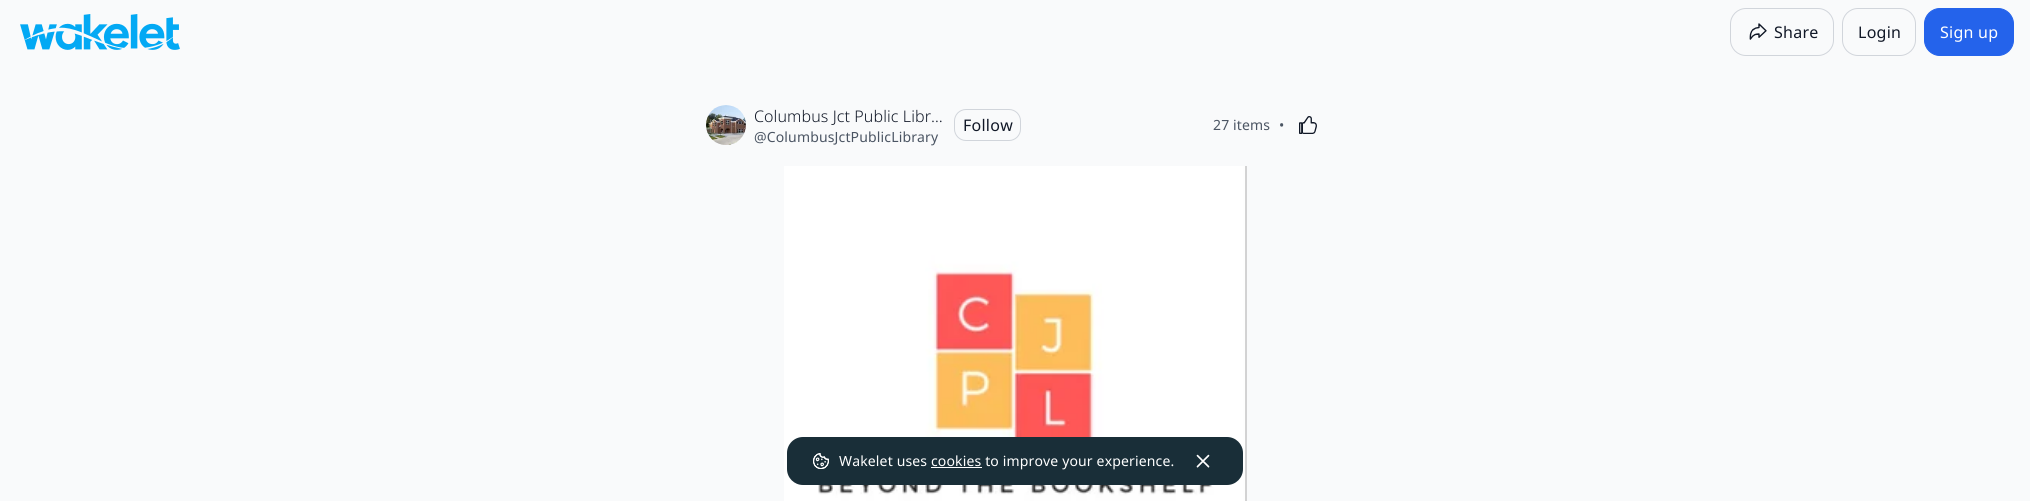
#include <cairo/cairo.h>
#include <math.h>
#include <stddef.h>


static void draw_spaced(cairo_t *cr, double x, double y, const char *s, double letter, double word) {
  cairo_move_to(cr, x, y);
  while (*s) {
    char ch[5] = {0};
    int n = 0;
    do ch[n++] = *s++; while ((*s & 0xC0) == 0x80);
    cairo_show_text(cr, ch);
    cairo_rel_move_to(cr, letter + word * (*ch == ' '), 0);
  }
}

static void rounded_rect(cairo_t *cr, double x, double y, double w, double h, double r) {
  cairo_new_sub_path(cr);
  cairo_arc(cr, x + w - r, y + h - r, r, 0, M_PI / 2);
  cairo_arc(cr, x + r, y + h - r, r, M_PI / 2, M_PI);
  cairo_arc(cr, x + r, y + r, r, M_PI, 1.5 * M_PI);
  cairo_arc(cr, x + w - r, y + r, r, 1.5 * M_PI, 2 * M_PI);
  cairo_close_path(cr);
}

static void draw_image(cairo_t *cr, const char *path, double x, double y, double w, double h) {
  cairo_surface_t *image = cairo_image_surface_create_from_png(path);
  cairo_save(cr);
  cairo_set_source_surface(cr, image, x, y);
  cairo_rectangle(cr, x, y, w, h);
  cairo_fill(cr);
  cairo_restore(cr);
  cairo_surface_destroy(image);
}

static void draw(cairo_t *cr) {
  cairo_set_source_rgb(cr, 249 / 255.0, 250 / 255.0, 251 / 255.0);
  cairo_paint(cr);
  draw_image(cr, "images/1.png", 20, 14, 160, 36);
  rounded_rect(cr, 1730.5, 8.5, 103, 47, 15.5);
  cairo_set_source_rgb(cr, 209 / 255.0, 213 / 255.0, 219 / 255.0);
  cairo_set_line_width(cr, 1);
  cairo_stroke(cr);
  draw_image(cr, "images/2.png", 1749, 23, 18, 17);
  rounded_rect(cr, 1842.5, 8.5, 73, 47, 15.5);
  cairo_stroke(cr);
  cairo_set_source_rgb(cr, 36 / 255.0, 99 / 255.0, 235 / 255.0);
  rounded_rect(cr, 1924.5, 8.5, 89, 47, 15.5);
  cairo_fill_preserve(cr);
  cairo_stroke(cr);
  draw_image(cr, "images/3.png", 706, 105, 40, 40);
  rounded_rect(cr, 954.5, 109.5, 66, 31, 11.5);
  cairo_set_source_rgb(cr, 209 / 255.0, 213 / 255.0, 219 / 255.0);
  cairo_stroke(cr);
  draw_image(cr, "images/4.png", 1299, 116, 18, 18);
  draw_image(cr, "images/5.png", 784, 166, 463, 335);
  cairo_set_source_rgb(cr, 25 / 255.0, 46 / 255.0, 56 / 255.0);
  rounded_rect(cr, 787, 437, 456, 48, 16);
  cairo_fill(cr);
  draw_image(cr, "images/6.png", 813, 453, 16, 16);
  cairo_set_source_rgb(cr, 1, 1, 1);
  cairo_rectangle(cr, 931, 467, 51, 1);
  cairo_fill(cr);
  draw_image(cr, "images/7.png", 1196, 454, 14, 14);
  cairo_select_font_face(cr, "Noto Sans", CAIRO_FONT_SLANT_NORMAL, CAIRO_FONT_WEIGHT_NORMAL);
  cairo_set_font_size(cr, 16);
  cairo_set_source_rgb(cr, 17 / 255.0, 24 / 255.0, 39 / 255.0);
  draw_spaced(cr, 1774, 38, "Share", 0.25, 0);
  draw_spaced(cr, 1858, 38, "Login", 0.25, 0);
  cairo_set_source_rgb(cr, 1, 1, 1);
  draw_spaced(cr, 1940, 38, "Sign up", 0.25, 0);
  cairo_select_font_face(cr, "Noto Sans Light", CAIRO_FONT_SLANT_NORMAL, CAIRO_FONT_WEIGHT_NORMAL);
  cairo_set_source_rgb(cr, 17 / 255.0, 24 / 255.0, 39 / 255.0);
  draw_spaced(cr, 754, 122, "Columbus Jct Public Libr…", 0.1, 0);
  cairo_select_font_face(cr, "Noto Sans", CAIRO_FONT_SLANT_NORMAL, CAIRO_FONT_WEIGHT_NORMAL);
  cairo_set_font_size(cr, 14);
  cairo_set_source_rgb(cr, 75 / 255.0, 85 / 255.0, 99 / 255.0);
  draw_spaced(cr, 754, 142, "@ColumbusJctPublicLibrary", 0.15, 0);
  cairo_set_font_size(cr, 16);
  cairo_set_source_rgb(cr, 17 / 255.0, 24 / 255.0, 39 / 255.0);
  draw_spaced(cr, 963, 131, "Follow", 0.25, 0);
  cairo_set_font_size(cr, 14);
  cairo_set_source_rgb(cr, 75 / 255.0, 85 / 255.0, 99 / 255.0);
  draw_spaced(cr, 1213, 130, "27 items", 0.15, 0);
  draw_spaced(cr, 1279, 130, "•", 0.15, 0);
  cairo_set_source_rgb(cr, 1, 1, 1);
  draw_spaced(cr, 839, 466, "Wakelet uses cookies to improve your experience.", 0.15, 0);
}

int main(void) {
  cairo_surface_t *surface = cairo_image_surface_create(CAIRO_FORMAT_RGB24, 2030, 501);
  cairo_t *cr = cairo_create(surface);
  cairo_font_options_t *options = cairo_font_options_create();
  cairo_font_options_set_hint_metrics(options, CAIRO_HINT_METRICS_OFF);
  cairo_font_options_set_hint_style(options, CAIRO_HINT_STYLE_NONE);
  cairo_set_font_options(cr, options);
  cairo_set_miter_limit(cr, 4);
  draw(cr);
  cairo_surface_write_to_png(surface, "out.png");
  cairo_font_options_destroy(options);
  cairo_destroy(cr);
  cairo_surface_destroy(surface);
  return 0;
}
